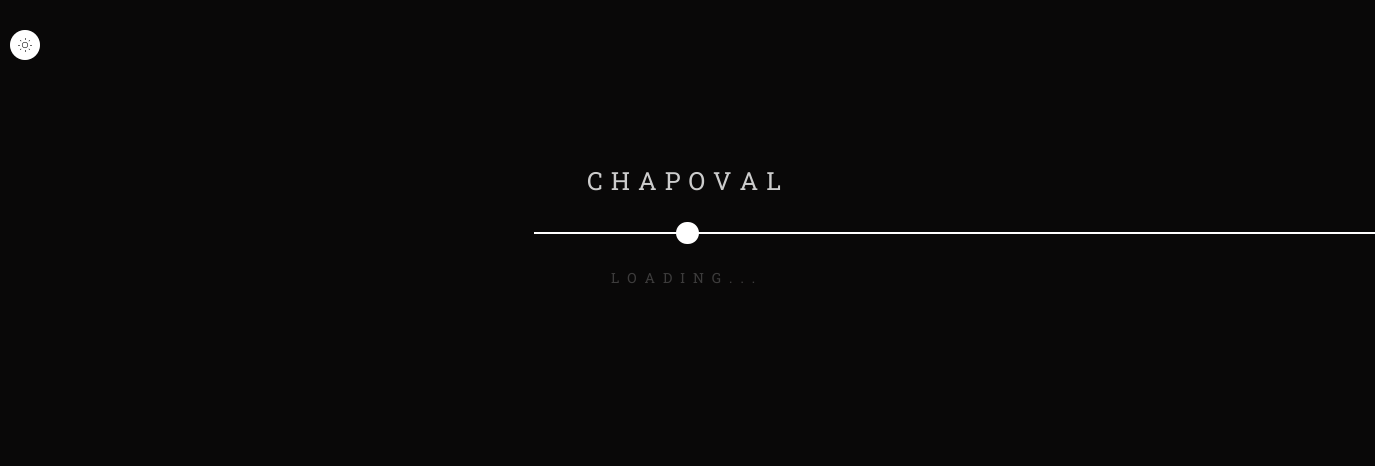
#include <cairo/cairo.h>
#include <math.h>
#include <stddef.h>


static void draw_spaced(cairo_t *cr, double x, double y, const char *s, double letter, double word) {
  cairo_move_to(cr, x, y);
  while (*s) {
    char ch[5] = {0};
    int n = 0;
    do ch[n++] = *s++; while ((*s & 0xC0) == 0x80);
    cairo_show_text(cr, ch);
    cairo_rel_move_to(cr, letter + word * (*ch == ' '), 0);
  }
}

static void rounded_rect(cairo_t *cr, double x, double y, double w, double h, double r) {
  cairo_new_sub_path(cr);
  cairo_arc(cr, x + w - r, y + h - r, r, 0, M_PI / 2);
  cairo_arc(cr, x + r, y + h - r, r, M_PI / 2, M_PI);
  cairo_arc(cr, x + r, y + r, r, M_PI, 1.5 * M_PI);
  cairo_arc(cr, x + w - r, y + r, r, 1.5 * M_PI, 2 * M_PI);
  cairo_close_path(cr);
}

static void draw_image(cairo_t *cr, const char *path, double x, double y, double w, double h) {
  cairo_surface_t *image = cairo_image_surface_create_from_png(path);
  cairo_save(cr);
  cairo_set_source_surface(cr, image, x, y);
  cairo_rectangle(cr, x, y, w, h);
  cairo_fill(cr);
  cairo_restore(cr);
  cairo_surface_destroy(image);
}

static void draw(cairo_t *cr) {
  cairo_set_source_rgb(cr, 9 / 255.0, 8 / 255.0, 8 / 255.0);
  cairo_paint(cr);
  cairo_set_source_rgb(cr, 1, 1, 1);
  cairo_arc(cr, 25, 45, 15, 0, 2 * M_PI);
  cairo_fill(cr);
  cairo_arc(cr, 25, 45, 14.5, 0, 2 * M_PI);
  cairo_set_source_rgba(cr, 1, 1, 1, 0.18);
  cairo_set_line_width(cr, 1);
  cairo_stroke(cr);
  draw_image(cr, "images/1.png", 18, 38, 14, 14);
  cairo_set_source_rgb(cr, 1, 1, 1);
  cairo_rectangle(cr, 534, 232, 841, 2);
  cairo_fill(cr);
  rounded_rect(cr, 676, 222, 23, 22, 11);
  cairo_fill(cr);
  cairo_select_font_face(cr, "Roboto Slab", CAIRO_FONT_SLANT_NORMAL, CAIRO_FONT_WEIGHT_NORMAL);
  cairo_set_font_size(cr, 25);
  cairo_set_source_rgb(cr, 204 / 255.0, 204 / 255.0, 204 / 255.0);
  draw_spaced(cr, 587, 190, "CHAPOVAL", 8, 0);
  cairo_set_font_size(cr, 14);
  cairo_set_source_rgb(cr, 61 / 255.0, 60 / 255.0, 60 / 255.0);
  draw_spaced(cr, 611, 283, "LOADING...", 8, 0);
}

int main(void) {
  cairo_surface_t *surface = cairo_image_surface_create(CAIRO_FORMAT_RGB24, 1375, 466);
  cairo_t *cr = cairo_create(surface);
  cairo_font_options_t *options = cairo_font_options_create();
  cairo_font_options_set_hint_metrics(options, CAIRO_HINT_METRICS_OFF);
  cairo_font_options_set_hint_style(options, CAIRO_HINT_STYLE_NONE);
  cairo_set_font_options(cr, options);
  cairo_set_miter_limit(cr, 4);
  draw(cr);
  cairo_surface_write_to_png(surface, "out.png");
  cairo_font_options_destroy(options);
  cairo_destroy(cr);
  cairo_surface_destroy(surface);
  return 0;
}
